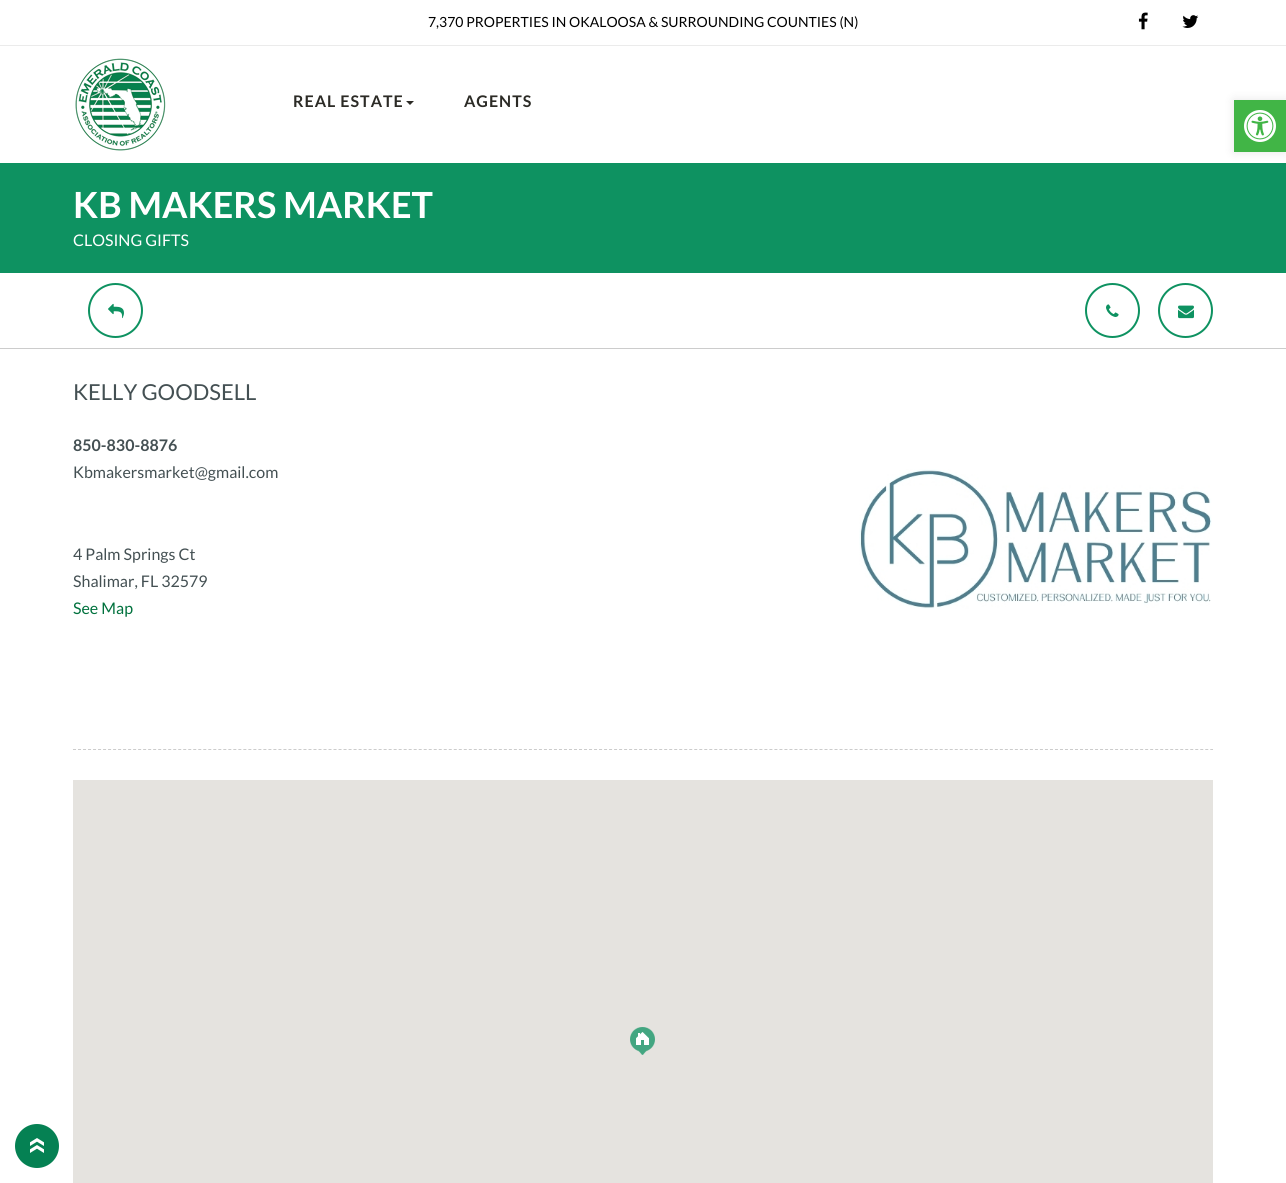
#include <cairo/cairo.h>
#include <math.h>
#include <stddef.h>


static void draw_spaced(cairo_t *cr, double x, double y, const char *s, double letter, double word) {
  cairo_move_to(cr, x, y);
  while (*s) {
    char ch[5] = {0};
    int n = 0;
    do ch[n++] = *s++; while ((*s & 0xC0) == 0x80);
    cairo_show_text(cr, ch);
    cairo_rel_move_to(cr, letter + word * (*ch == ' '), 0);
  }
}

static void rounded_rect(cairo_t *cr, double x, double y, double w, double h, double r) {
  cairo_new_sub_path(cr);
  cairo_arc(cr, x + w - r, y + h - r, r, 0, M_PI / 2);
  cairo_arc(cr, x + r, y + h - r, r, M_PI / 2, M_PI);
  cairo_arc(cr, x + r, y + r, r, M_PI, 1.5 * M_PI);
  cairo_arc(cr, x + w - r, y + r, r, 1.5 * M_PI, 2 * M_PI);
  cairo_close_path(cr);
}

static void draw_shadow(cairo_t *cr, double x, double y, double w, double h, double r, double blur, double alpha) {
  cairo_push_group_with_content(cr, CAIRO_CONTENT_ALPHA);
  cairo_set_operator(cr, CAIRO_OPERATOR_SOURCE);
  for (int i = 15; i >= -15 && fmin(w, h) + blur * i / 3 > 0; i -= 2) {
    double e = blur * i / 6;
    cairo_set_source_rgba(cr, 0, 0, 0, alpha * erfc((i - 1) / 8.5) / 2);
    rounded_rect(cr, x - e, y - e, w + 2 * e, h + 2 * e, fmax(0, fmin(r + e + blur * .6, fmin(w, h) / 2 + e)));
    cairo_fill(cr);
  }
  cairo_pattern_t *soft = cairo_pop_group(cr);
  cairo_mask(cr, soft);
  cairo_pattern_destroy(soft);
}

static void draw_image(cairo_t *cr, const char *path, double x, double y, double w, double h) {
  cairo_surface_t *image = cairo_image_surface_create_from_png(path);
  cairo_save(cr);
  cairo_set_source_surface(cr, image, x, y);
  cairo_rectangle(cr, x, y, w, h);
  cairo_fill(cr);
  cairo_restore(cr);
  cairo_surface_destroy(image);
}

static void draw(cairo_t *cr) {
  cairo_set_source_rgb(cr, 1, 1, 1);
  cairo_paint(cr);
  cairo_set_source_rgb(cr, 235 / 255.0, 235 / 255.0, 235 / 255.0);
  cairo_rectangle(cr, 0, 45, 1286, 1);
  cairo_fill(cr);
  draw_image(cr, "images/1.png", 1138, 12, 10, 18);
  draw_image(cr, "images/2.png", 1182, 15, 17, 13);
  draw_image(cr, "images/3.png", 75, 58, 91, 93);
  cairo_set_source_rgb(cr, 44 / 255.0, 43 / 255.0, 38 / 255.0);
  cairo_new_path(cr);
  cairo_move_to(cr, 406, 101);
  cairo_line_to(cr, 414, 101);
  cairo_line_to(cr, 410, 105);
  cairo_close_path(cr);
  cairo_fill(cr);
  cairo_set_source_rgb(cr, 14 / 255.0, 146 / 255.0, 97 / 255.0);
  cairo_rectangle(cr, 0, 163, 1286, 110);
  cairo_fill(cr);
  cairo_set_source_rgb(cr, 0, 0, 0);
  draw_shadow(cr, 1234, 100, 52, 52, 0, 5, 0.1);
  cairo_set_source_rgb(cr, 65 / 255.0, 181 / 255.0, 70 / 255.0);
  cairo_rectangle(cr, 1234, 100, 52, 52);
  cairo_fill(cr);
  draw_image(cr, "images/4.png", 1244, 110, 32, 32);
  cairo_set_source_rgb(cr, 204 / 255.0, 204 / 255.0, 204 / 255.0);
  cairo_rectangle(cr, 0, 348, 1286, 1);
  cairo_fill(cr);
  cairo_arc(cr, 115.5, 310.5, 26.5, 0, 2 * M_PI);
  cairo_set_source_rgb(cr, 14 / 255.0, 146 / 255.0, 97 / 255.0);
  cairo_stroke(cr);
  draw_image(cr, "images/5.png", 108, 303, 16, 16);
  cairo_arc(cr, 1112.5, 310.5, 26.5, 0, 2 * M_PI);
  cairo_stroke(cr);
  draw_image(cr, "images/6.png", 1106, 304, 13, 13);
  cairo_arc(cr, 1185.5, 310.5, 26.5, 0, 2 * M_PI);
  cairo_stroke(cr);
  draw_image(cr, "images/7.png", 1178, 305, 16, 14);
  draw_image(cr, "images/8.png", 859, 469, 353, 140);
  cairo_new_path(cr);
  cairo_move_to(cr, 73, 749.5);
  cairo_line_to(cr, 1213, 749.5);
  cairo_set_source_rgb(cr, 204 / 255.0, 204 / 255.0, 204 / 255.0);
  cairo_set_line_width(cr, 1);
  cairo_set_dash(cr, (double[]){3, 2.01}, 2, 0);
  cairo_stroke(cr);
  cairo_set_source_rgb(cr, 229 / 255.0, 227 / 255.0, 223 / 255.0);
  cairo_rectangle(cr, 73, 780, 1140, 403);
  cairo_fill(cr);
  draw_image(cr, "images/9.png", 630, 1027, 25, 28);
  draw_image(cr, "images/10.png", 15, 1124, 44, 44);
  cairo_select_font_face(cr, "Lato", CAIRO_FONT_SLANT_NORMAL, CAIRO_FONT_WEIGHT_NORMAL);
  cairo_set_font_size(cr, 14);
  cairo_set_source_rgb(cr, 0, 0, 0);
  cairo_move_to(cr, 428, 27);
  cairo_show_text(cr, "7,370 PROPERTIES IN OKALOOSA & SURROUNDING COUNTIES (N)");
  cairo_select_font_face(cr, "Lato", CAIRO_FONT_SLANT_NORMAL, CAIRO_FONT_WEIGHT_BOLD);
  cairo_set_font_size(cr, 16);
  cairo_set_source_rgb(cr, 44 / 255.0, 43 / 255.0, 38 / 255.0);
  draw_spaced(cr, 293, 107, "REAL ESTATE", 1, 0);
  draw_spaced(cr, 464, 107, "AGENTS", 1, 0);
  cairo_set_font_size(cr, 36);
  cairo_set_source_rgb(cr, 1, 1, 1);
  cairo_move_to(cr, 73, 218);
  cairo_show_text(cr, "KB MAKERS MARKET");
  cairo_select_font_face(cr, "Lato", CAIRO_FONT_SLANT_NORMAL, CAIRO_FONT_WEIGHT_NORMAL);
  cairo_set_font_size(cr, 16);
  cairo_move_to(cr, 73, 246);
  cairo_show_text(cr, "CLOSING GIFTS");
  cairo_set_font_size(cr, 22);
  cairo_set_source_rgb(cr, 68 / 255.0, 80 / 255.0, 83 / 255.0);
  cairo_move_to(cr, 73, 400);
  cairo_show_text(cr, "KELLY GOODSELL");
  cairo_select_font_face(cr, "Lato", CAIRO_FONT_SLANT_NORMAL, CAIRO_FONT_WEIGHT_BOLD);
  cairo_set_font_size(cr, 16);
  cairo_move_to(cr, 73, 451);
  cairo_show_text(cr, "850-830-8876");
  cairo_select_font_face(cr, "Lato", CAIRO_FONT_SLANT_NORMAL, CAIRO_FONT_WEIGHT_NORMAL);
  cairo_move_to(cr, 73, 478);
  cairo_show_text(cr, "Kbmakersmarket@gmail.com");
  cairo_move_to(cr, 73, 560);
  cairo_show_text(cr, "4 Palm Springs Ct");
  cairo_move_to(cr, 73, 587);
  cairo_show_text(cr, "Shalimar, FL 32579");
  cairo_set_source_rgb(cr, 0, 113 / 255.0, 61 / 255.0);
  cairo_move_to(cr, 73, 614);
  cairo_show_text(cr, "See Map");
}

int main(void) {
  cairo_surface_t *surface = cairo_image_surface_create(CAIRO_FORMAT_RGB24, 1286, 1183);
  cairo_t *cr = cairo_create(surface);
  cairo_font_options_t *options = cairo_font_options_create();
  cairo_font_options_set_hint_metrics(options, CAIRO_HINT_METRICS_OFF);
  cairo_font_options_set_hint_style(options, CAIRO_HINT_STYLE_NONE);
  cairo_set_font_options(cr, options);
  cairo_set_miter_limit(cr, 4);
  draw(cr);
  cairo_surface_write_to_png(surface, "out.png");
  cairo_font_options_destroy(options);
  cairo_destroy(cr);
  cairo_surface_destroy(surface);
  return 0;
}
